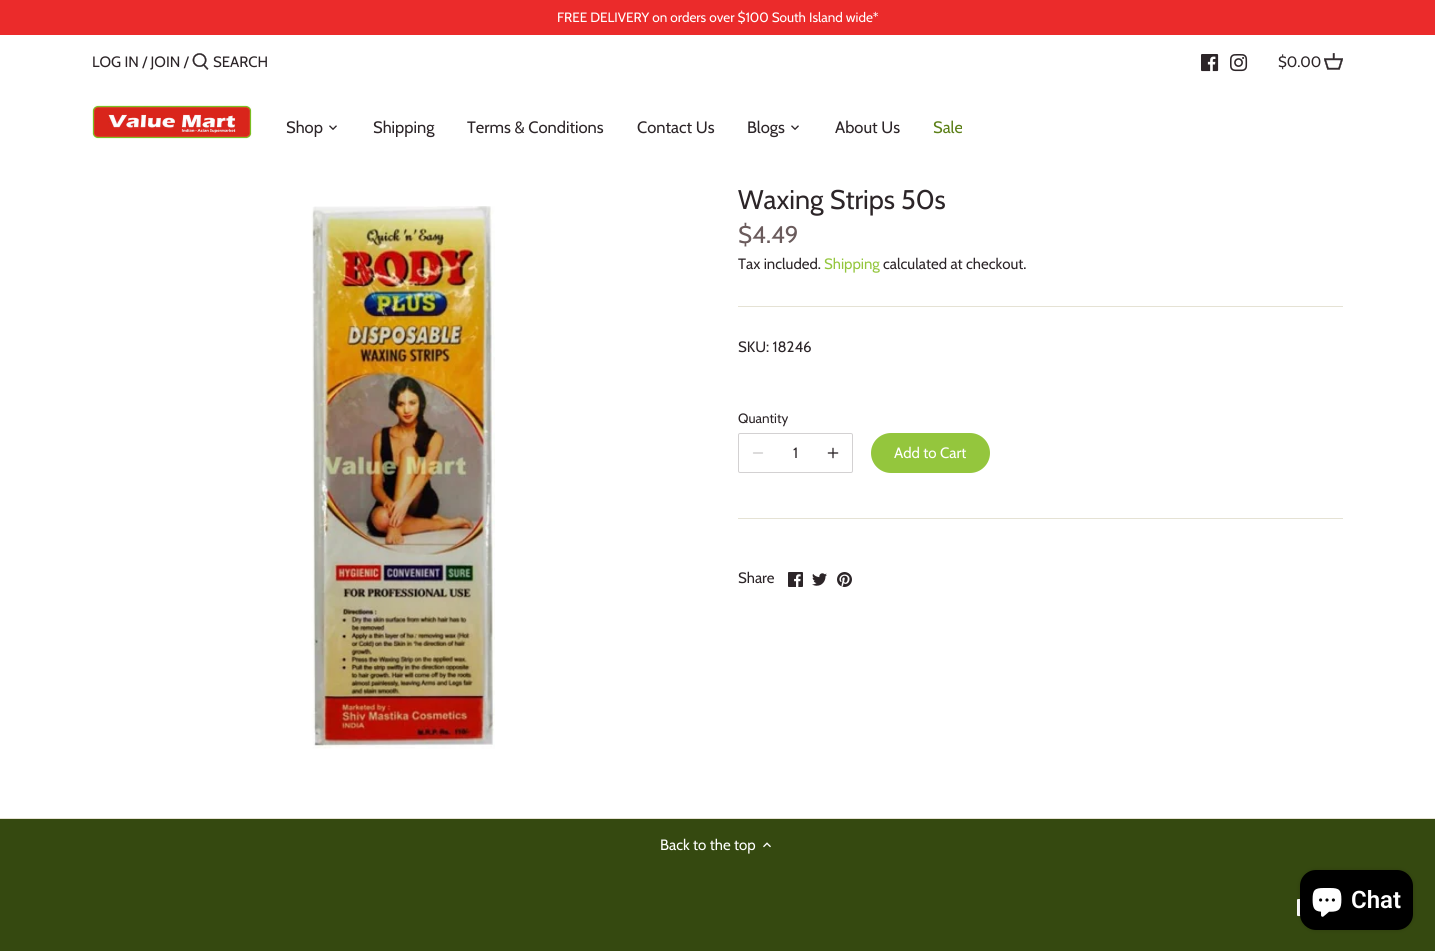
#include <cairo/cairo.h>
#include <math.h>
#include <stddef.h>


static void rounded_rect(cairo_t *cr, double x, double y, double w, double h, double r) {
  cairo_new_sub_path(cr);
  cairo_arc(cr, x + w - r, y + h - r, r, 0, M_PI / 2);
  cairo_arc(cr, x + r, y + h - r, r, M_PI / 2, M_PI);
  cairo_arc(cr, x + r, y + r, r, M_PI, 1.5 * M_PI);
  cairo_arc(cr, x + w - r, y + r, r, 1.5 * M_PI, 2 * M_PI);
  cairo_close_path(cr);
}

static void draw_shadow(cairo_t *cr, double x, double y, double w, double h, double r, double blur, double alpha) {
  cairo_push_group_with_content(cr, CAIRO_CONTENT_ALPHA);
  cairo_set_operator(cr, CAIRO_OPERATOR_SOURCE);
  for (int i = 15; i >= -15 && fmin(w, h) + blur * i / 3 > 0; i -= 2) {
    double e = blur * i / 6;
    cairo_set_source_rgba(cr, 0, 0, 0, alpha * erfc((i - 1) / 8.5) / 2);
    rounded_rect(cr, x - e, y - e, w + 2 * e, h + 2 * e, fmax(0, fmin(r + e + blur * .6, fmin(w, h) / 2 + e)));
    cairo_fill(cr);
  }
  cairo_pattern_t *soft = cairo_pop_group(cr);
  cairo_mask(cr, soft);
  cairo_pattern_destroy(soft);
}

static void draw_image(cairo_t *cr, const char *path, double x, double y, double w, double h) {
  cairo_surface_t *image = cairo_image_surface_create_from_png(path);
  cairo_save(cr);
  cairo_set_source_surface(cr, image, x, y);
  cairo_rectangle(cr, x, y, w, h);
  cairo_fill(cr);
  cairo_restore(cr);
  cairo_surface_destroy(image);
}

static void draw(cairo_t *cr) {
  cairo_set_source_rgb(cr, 53 / 255.0, 73 / 255.0, 16 / 255.0);
  cairo_paint(cr);
  cairo_set_source_rgb(cr, 1, 1, 1);
  cairo_rectangle(cr, 0, 35, 1435, 783);
  cairo_fill(cr);
  cairo_set_source_rgb(cr, 235 / 255.0, 43 / 255.0, 43 / 255.0);
  cairo_rectangle(cr, 0, 0, 1435, 35);
  cairo_fill(cr);
  draw_image(cr, "images/1.png", 192, 53, 17, 17);
  draw_image(cr, "images/2.png", 1201, 54, 18, 18);
  draw_image(cr, "images/3.png", 1230, 54, 18, 18);
  draw_image(cr, "images/4.png", 1324, 53, 19, 17);
  draw_image(cr, "images/5.png", 92, 105, 160, 34);
  draw_image(cr, "images/6.png", 329, 125, 8, 5);
  draw_image(cr, "images/6.png", 791, 125, 8, 5);
  draw_image(cr, "images/7.png", 311, 206, 184, 543);
  cairo_set_source_rgb(cr, 229 / 255.0, 226 / 255.0, 212 / 255.0);
  cairo_rectangle(cr, 738, 306, 605, 1);
  cairo_fill(cr);
  cairo_rectangle(cr, 738, 518, 605, 1);
  cairo_fill(cr);
  rounded_rect(cr, 738.5, 433.5, 114, 39, 1.5);
  cairo_set_source_rgb(cr, 211 / 255.0, 209 / 255.0, 210 / 255.0);
  cairo_set_line_width(cr, 1);
  cairo_stroke(cr);
  cairo_new_path(cr);
  cairo_move_to(cr, 753.5, 453);
  cairo_line_to(cr, 762.5, 453);
  cairo_set_source_rgb(cr, 202 / 255.0, 201 / 255.0, 201 / 255.0);
  cairo_set_line_width(cr, 1.3);
  cairo_set_line_cap(cr, CAIRO_LINE_CAP_ROUND);
  cairo_set_line_join(cr, CAIRO_LINE_JOIN_ROUND);
  cairo_stroke(cr);
  draw_image(cr, "images/8.png", 827, 447, 12, 12);
  cairo_set_source_rgb(cr, 148 / 255.0, 198 / 255.0, 61 / 255.0);
  rounded_rect(cr, 872, 434, 117, 38, 19);
  cairo_fill_preserve(cr);
  cairo_set_line_width(cr, 2);
  cairo_set_line_cap(cr, CAIRO_LINE_CAP_BUTT);
  cairo_set_line_join(cr, CAIRO_LINE_JOIN_MITER);
  cairo_stroke(cr);
  draw_image(cr, "images/9.png", 788, 572, 15, 15);
  draw_image(cr, "images/10.png", 812, 573, 15, 13);
  draw_image(cr, "images/11.png", 837, 572, 15, 15);
  cairo_set_source_rgb(cr, 229 / 255.0, 226 / 255.0, 212 / 255.0);
  cairo_rectangle(cr, 0, 818, 1435, 1);
  cairo_fill(cr);
  draw_image(cr, "images/12.png", 763, 842, 8, 6);
  draw_image(cr, "images/13.png", 1297, 899, 4, 18);
  cairo_set_source_rgb(cr, 0, 0, 0);
  draw_shadow(cr, 1300, 870, 113, 60, 16, 2.5, 0.15);
  cairo_set_source_rgb(cr, 0, 0, 0);
  rounded_rect(cr, 1300, 870, 113, 60, 16);
  cairo_fill(cr);
  draw_image(cr, "images/14.png", 1312, 888, 30, 29);
  cairo_select_font_face(cr, "Cabin", CAIRO_FONT_SLANT_NORMAL, CAIRO_FONT_WEIGHT_NORMAL);
  cairo_set_font_size(cr, 13.5);
  cairo_set_source_rgb(cr, 1, 1, 1);
  cairo_move_to(cr, 557, 22);
  cairo_show_text(cr, "FREE DELIVERY on orders over $100 South Island wide*");
  cairo_set_font_size(cr, 15);
  cairo_set_source_rgb(cr, 44 / 255.0, 37 / 255.0, 40 / 255.0);
  cairo_move_to(cr, 92, 67);
  cairo_show_text(cr, "LOG IN / JOIN /");
  cairo_move_to(cr, 213, 67);
  cairo_show_text(cr, "SEARCH");
  cairo_move_to(cr, 1278, 67);
  cairo_show_text(cr, "$0.00");
  cairo_set_font_size(cr, 16.5);
  cairo_move_to(cr, 286, 133);
  cairo_show_text(cr, "Shop");
  cairo_move_to(cr, 373, 133);
  cairo_show_text(cr, "Shipping");
  cairo_move_to(cr, 467, 133);
  cairo_show_text(cr, "Terms & Conditions");
  cairo_move_to(cr, 637, 133);
  cairo_show_text(cr, "Contact Us");
  cairo_move_to(cr, 747, 133);
  cairo_show_text(cr, "Blogs");
  cairo_move_to(cr, 835, 133);
  cairo_show_text(cr, "About Us");
  cairo_set_source_rgb(cr, 92 / 255.0, 128 / 255.0, 24 / 255.0);
  cairo_move_to(cr, 933, 133);
  cairo_show_text(cr, "Sale");
  cairo_set_font_size(cr, 27);
  cairo_set_source_rgb(cr, 44 / 255.0, 37 / 255.0, 40 / 255.0);
  cairo_move_to(cr, 738, 209);
  cairo_show_text(cr, "Waxing Strips 50s");
  cairo_set_font_size(cr, 24);
  cairo_set_source_rgb(cr, 106 / 255.0, 91 / 255.0, 92 / 255.0);
  cairo_move_to(cr, 738, 243);
  cairo_show_text(cr, "$4.49");
  cairo_set_font_size(cr, 15);
  cairo_set_source_rgb(cr, 44 / 255.0, 37 / 255.0, 40 / 255.0);
  cairo_move_to(cr, 738, 269);
  cairo_show_text(cr, "Tax included.");
  cairo_set_source_rgb(cr, 148 / 255.0, 198 / 255.0, 61 / 255.0);
  cairo_move_to(cr, 824, 269);
  cairo_show_text(cr, "Shipping");
  cairo_set_source_rgb(cr, 44 / 255.0, 37 / 255.0, 40 / 255.0);
  cairo_move_to(cr, 883, 269);
  cairo_show_text(cr, "calculated at checkout.");
  cairo_move_to(cr, 738, 352);
  cairo_show_text(cr, "SKU: 18246");
  cairo_set_font_size(cr, 13.5);
  cairo_move_to(cr, 738, 423);
  cairo_show_text(cr, "Quantity");
  cairo_set_font_size(cr, 15);
  cairo_move_to(cr, 793, 458);
  cairo_show_text(cr, "1");
  cairo_set_source_rgb(cr, 1, 1, 1);
  cairo_move_to(cr, 894, 458);
  cairo_show_text(cr, "Add to Cart");
  cairo_set_source_rgb(cr, 44 / 255.0, 37 / 255.0, 40 / 255.0);
  cairo_move_to(cr, 738, 583);
  cairo_show_text(cr, "Share");
  cairo_set_source_rgb(cr, 1, 1, 1);
  cairo_move_to(cr, 660, 850);
  cairo_show_text(cr, "Back to the top");
  cairo_select_font_face(cr, "Roboto SemiBold", CAIRO_FONT_SLANT_NORMAL, CAIRO_FONT_WEIGHT_NORMAL);
  cairo_set_font_size(cr, 24);
  cairo_move_to(cr, 1351, 908);
  cairo_show_text(cr, "Chat");
}

int main(void) {
  cairo_surface_t *surface = cairo_image_surface_create(CAIRO_FORMAT_RGB24, 1435, 951);
  cairo_t *cr = cairo_create(surface);
  cairo_font_options_t *options = cairo_font_options_create();
  cairo_font_options_set_hint_metrics(options, CAIRO_HINT_METRICS_OFF);
  cairo_font_options_set_hint_style(options, CAIRO_HINT_STYLE_NONE);
  cairo_set_font_options(cr, options);
  cairo_set_miter_limit(cr, 4);
  draw(cr);
  cairo_surface_write_to_png(surface, "out.png");
  cairo_font_options_destroy(options);
  cairo_destroy(cr);
  cairo_surface_destroy(surface);
  return 0;
}
